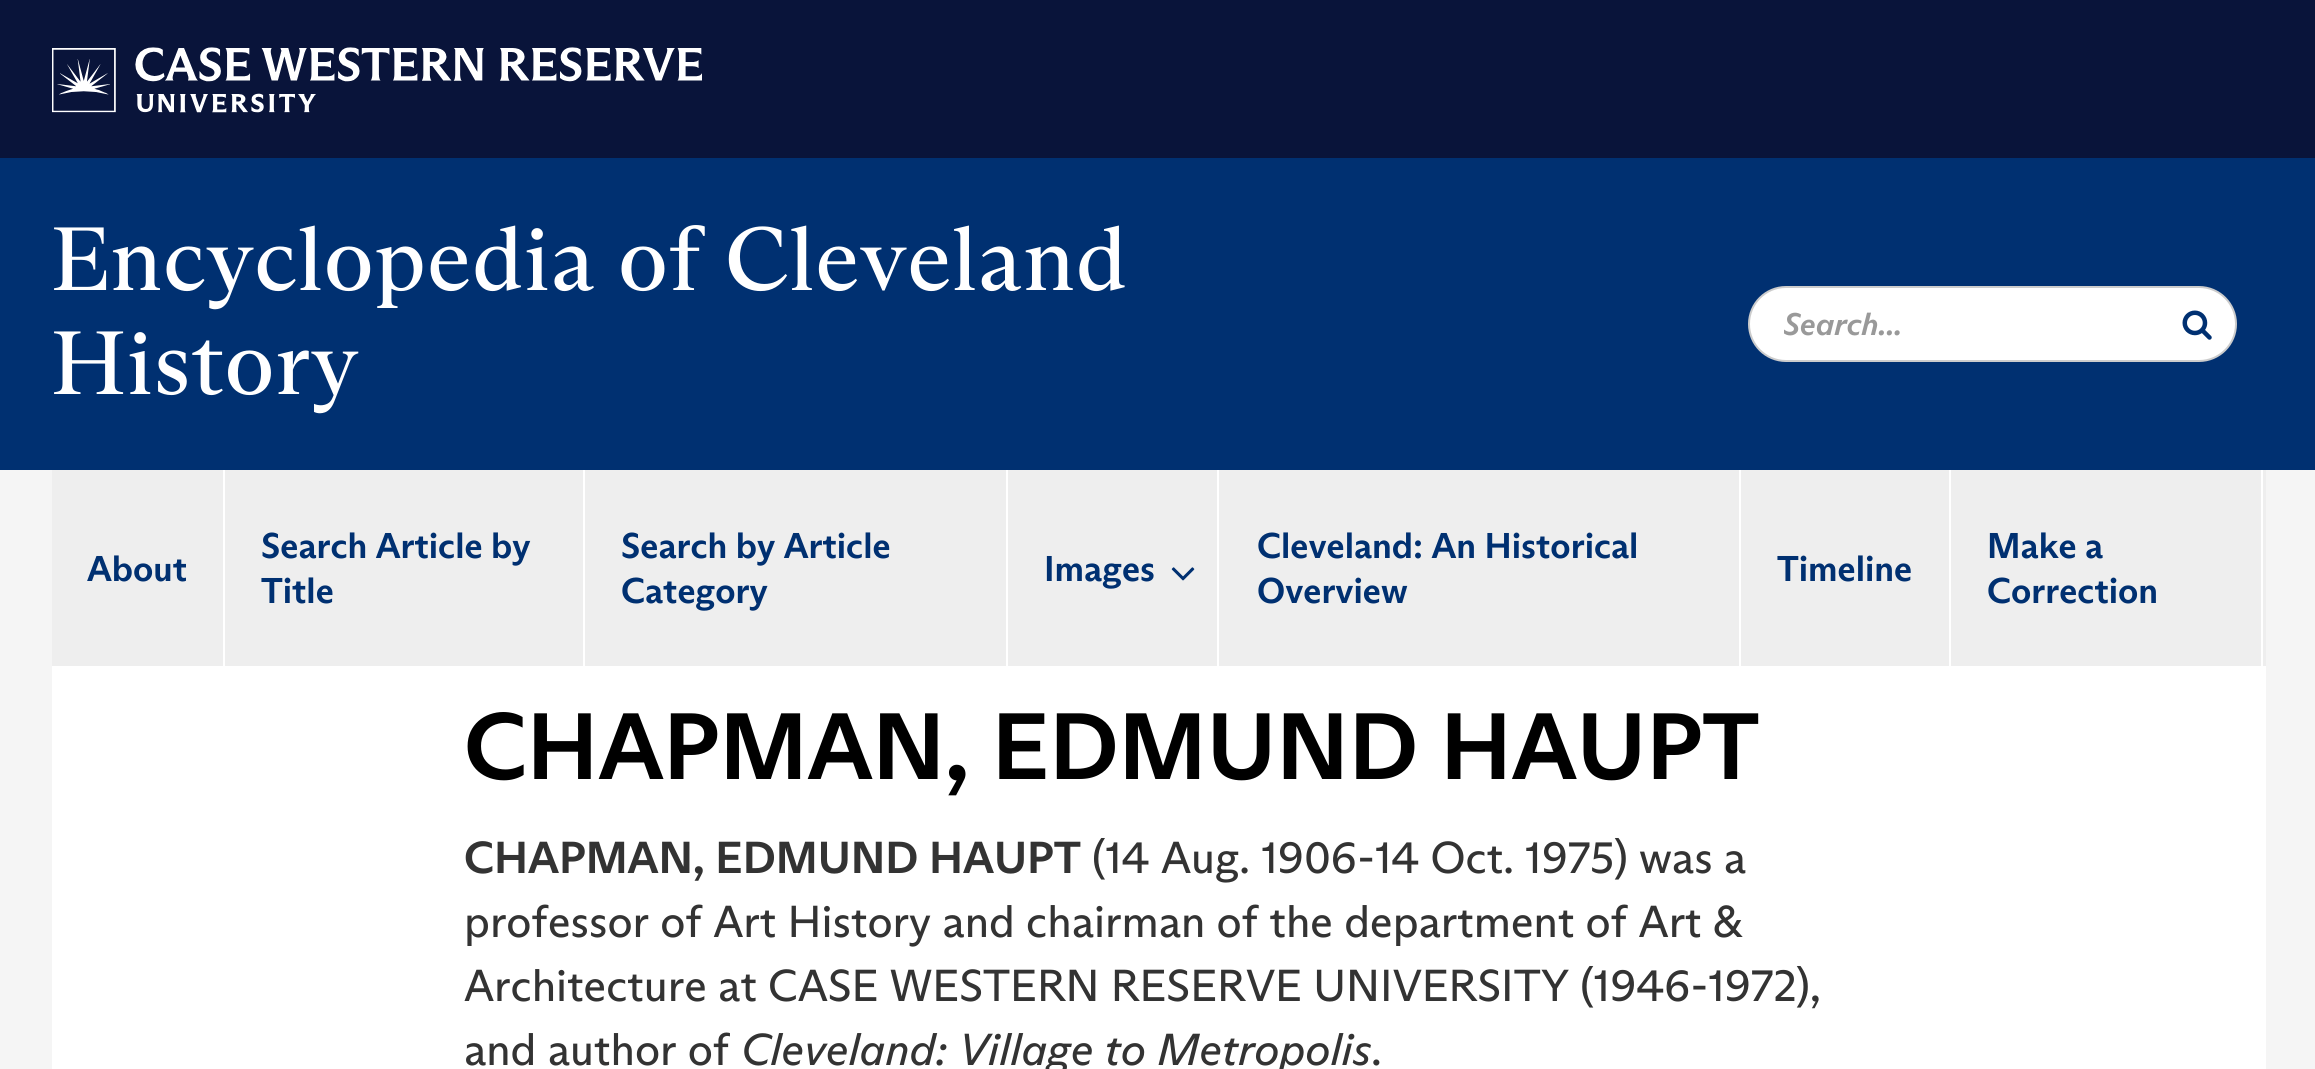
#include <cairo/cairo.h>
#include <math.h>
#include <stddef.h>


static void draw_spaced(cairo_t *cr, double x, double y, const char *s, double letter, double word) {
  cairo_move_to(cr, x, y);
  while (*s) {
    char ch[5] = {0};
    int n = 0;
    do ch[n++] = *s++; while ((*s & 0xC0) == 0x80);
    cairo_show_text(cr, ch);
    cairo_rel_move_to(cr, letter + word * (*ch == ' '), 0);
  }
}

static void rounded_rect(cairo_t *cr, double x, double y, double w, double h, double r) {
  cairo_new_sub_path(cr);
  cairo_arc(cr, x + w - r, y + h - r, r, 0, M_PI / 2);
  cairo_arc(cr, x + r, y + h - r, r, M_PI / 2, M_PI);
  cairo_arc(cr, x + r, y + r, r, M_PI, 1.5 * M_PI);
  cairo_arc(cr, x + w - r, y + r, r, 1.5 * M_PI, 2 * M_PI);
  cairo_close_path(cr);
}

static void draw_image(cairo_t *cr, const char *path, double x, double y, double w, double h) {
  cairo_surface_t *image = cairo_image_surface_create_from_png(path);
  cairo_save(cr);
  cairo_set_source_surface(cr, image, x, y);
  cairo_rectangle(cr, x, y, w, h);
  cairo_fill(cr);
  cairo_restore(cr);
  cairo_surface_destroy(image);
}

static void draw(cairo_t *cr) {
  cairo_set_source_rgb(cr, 245 / 255.0, 245 / 255.0, 245 / 255.0);
  cairo_paint(cr);
  cairo_set_source_rgb(cr, 9 / 255.0, 20 / 255.0, 58 / 255.0);
  cairo_rectangle(cr, 0, 0, 2315, 158);
  cairo_fill(cr);
  draw_image(cr, "images/1.png", 52, 47, 650, 66);
  cairo_set_source_rgb(cr, 0, 48 / 255.0, 113 / 255.0);
  cairo_rectangle(cr, 0, 158, 2315, 312);
  cairo_fill(cr);
  cairo_set_source_rgb(cr, 1, 1, 1);
  rounded_rect(cr, 1749, 287, 487, 74, 37);
  cairo_fill_preserve(cr);
  cairo_set_source_rgb(cr, 204 / 255.0, 204 / 255.0, 204 / 255.0);
  cairo_stroke(cr);
  draw_image(cr, "images/2.png", 2182, 310, 30, 30);
  cairo_set_source_rgb(cr, 238 / 255.0, 238 / 255.0, 238 / 255.0);
  cairo_rectangle(cr, 52, 470, 2214, 196);
  cairo_fill(cr);
  cairo_set_source_rgb(cr, 1, 1, 1);
  cairo_rectangle(cr, 223, 470, 2, 196);
  cairo_fill(cr);
  cairo_rectangle(cr, 583, 470, 2, 196);
  cairo_fill(cr);
  cairo_rectangle(cr, 1006, 470, 2, 196);
  cairo_fill(cr);
  cairo_rectangle(cr, 1217, 470, 2, 196);
  cairo_fill(cr);
  draw_image(cr, "images/3.png", 1171, 567, 24, 14);
  cairo_rectangle(cr, 1739, 470, 2, 196);
  cairo_fill(cr);
  cairo_rectangle(cr, 1949, 470, 2, 196);
  cairo_fill(cr);
  cairo_rectangle(cr, 2261, 470, 2, 196);
  cairo_fill(cr);
  cairo_rectangle(cr, 52, 666, 2214, 403);
  cairo_fill(cr);
  cairo_select_font_face(cr, "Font", CAIRO_FONT_SLANT_NORMAL, CAIRO_FONT_WEIGHT_NORMAL);
  cairo_set_font_size(cr, 90);
  draw_spaced(cr, 51, 290, "Encyclopedia of Cleveland", 0.9, 0);
  draw_spaced(cr, 51, 394, "History", 0.9, 0);
  cairo_save(cr);
  cairo_rectangle(cr, 1784, 304, 441, 40);
  cairo_clip(cr);
  cairo_select_font_face(cr, "Font", CAIRO_FONT_SLANT_ITALIC, CAIRO_FONT_WEIGHT_BOLD);
  cairo_set_font_size(cr, 31.5);
  cairo_set_source_rgb(cr, 153 / 255.0, 153 / 255.0, 153 / 255.0);
  cairo_move_to(cr, 1783, 335);
  cairo_show_text(cr, "Search...");
  cairo_restore(cr);
  cairo_select_font_face(cr, "Font", CAIRO_FONT_SLANT_NORMAL, CAIRO_FONT_WEIGHT_BOLD);
  cairo_set_font_size(cr, 36);
  cairo_set_source_rgb(cr, 0, 48 / 255.0, 113 / 255.0);
  cairo_move_to(cr, 87, 581);
  cairo_show_text(cr, "About");
  cairo_move_to(cr, 261, 558);
  cairo_show_text(cr, "Search Article by");
  cairo_move_to(cr, 261, 603);
  cairo_show_text(cr, "Title");
  cairo_move_to(cr, 621, 558);
  cairo_show_text(cr, "Search by Article");
  cairo_move_to(cr, 621, 603);
  cairo_show_text(cr, "Category");
  cairo_move_to(cr, 1044, 581);
  cairo_show_text(cr, "Images");
  cairo_move_to(cr, 1257, 558);
  cairo_show_text(cr, "Cleveland: An Historical");
  cairo_move_to(cr, 1257, 603);
  cairo_show_text(cr, "Overview");
  cairo_move_to(cr, 1777, 581);
  cairo_show_text(cr, "Timeline");
  cairo_move_to(cr, 1987, 558);
  cairo_show_text(cr, "Make a");
  cairo_move_to(cr, 1987, 603);
  cairo_show_text(cr, "Correction");
  cairo_set_font_size(cr, 94.5);
  cairo_set_source_rgb(cr, 0, 0, 0);
  cairo_move_to(cr, 464, 779);
  cairo_show_text(cr, "CHAPMAN, EDMUND HAUPT");
  cairo_set_font_size(cr, 45);
  cairo_set_source_rgb(cr, 51 / 255.0, 51 / 255.0, 51 / 255.0);
  cairo_move_to(cr, 464, 873);
  cairo_show_text(cr, "CHAPMAN, EDMUND HAUPT");
  cairo_select_font_face(cr, "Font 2", CAIRO_FONT_SLANT_NORMAL, CAIRO_FONT_WEIGHT_NORMAL);
  cairo_move_to(cr, 1092, 873);
  cairo_show_text(cr, "(14 Aug. 1906-14 Oct. 1975) was a");
  cairo_move_to(cr, 464, 937);
  cairo_show_text(cr, "professor of Art History and chairman of the department of Art &");
  cairo_move_to(cr, 464, 1001);
  cairo_show_text(cr, "Architecture at CASE WESTERN RESERVE UNIVERSITY (1946-1972),");
  cairo_move_to(cr, 464, 1065);
  cairo_show_text(cr, "and author of");
  cairo_select_font_face(cr, "Font", CAIRO_FONT_SLANT_ITALIC, CAIRO_FONT_WEIGHT_NORMAL);
  cairo_move_to(cr, 741, 1065);
  cairo_show_text(cr, "Cleveland: Village to Metropolis");
  cairo_select_font_face(cr, "Font 2", CAIRO_FONT_SLANT_NORMAL, CAIRO_FONT_WEIGHT_NORMAL);
  cairo_move_to(cr, 1371, 1065);
  cairo_show_text(cr, ".");
}

int main(void) {
  cairo_surface_t *surface = cairo_image_surface_create(CAIRO_FORMAT_RGB24, 2315, 1069);
  cairo_t *cr = cairo_create(surface);
  cairo_font_options_t *options = cairo_font_options_create();
  cairo_font_options_set_hint_metrics(options, CAIRO_HINT_METRICS_OFF);
  cairo_font_options_set_hint_style(options, CAIRO_HINT_STYLE_NONE);
  cairo_set_font_options(cr, options);
  cairo_set_miter_limit(cr, 4);
  draw(cr);
  cairo_surface_write_to_png(surface, "out.png");
  cairo_font_options_destroy(options);
  cairo_destroy(cr);
  cairo_surface_destroy(surface);
  return 0;
}
